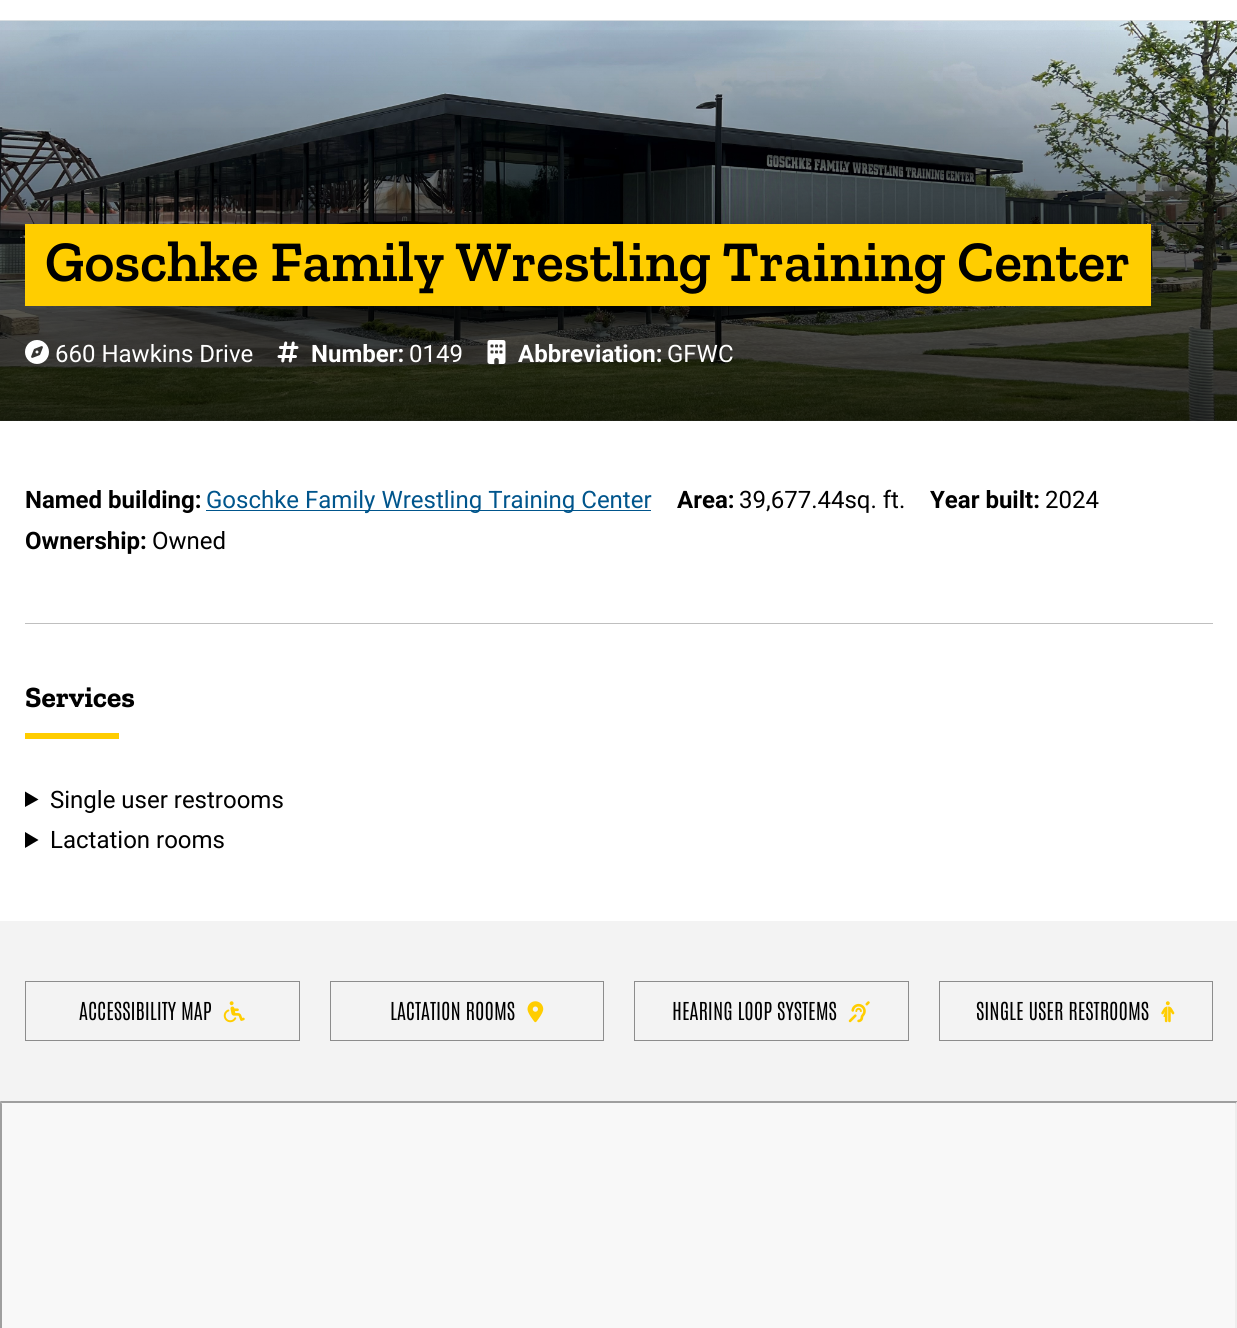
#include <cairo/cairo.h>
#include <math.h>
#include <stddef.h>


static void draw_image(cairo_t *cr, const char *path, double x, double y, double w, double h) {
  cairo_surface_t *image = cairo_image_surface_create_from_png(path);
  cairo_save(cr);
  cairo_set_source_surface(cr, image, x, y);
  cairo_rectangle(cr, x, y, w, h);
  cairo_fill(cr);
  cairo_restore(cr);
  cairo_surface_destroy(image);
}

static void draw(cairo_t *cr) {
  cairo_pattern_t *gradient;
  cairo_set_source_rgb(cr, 1, 1, 1);
  cairo_paint(cr);
  cairo_set_source_rgb(cr, 230 / 255.0, 229 / 255.0, 229 / 255.0);
  cairo_rectangle(cr, 0, 20, 1237, 1);
  cairo_fill(cr);
  draw_image(cr, "images/1.png", 0, 20, 1237, 401);
  gradient = cairo_pattern_create_linear(619, 421, 619, 21);
  cairo_pattern_add_color_stop_rgba(gradient, 0, 0, 0, 0, 0.8);
  cairo_pattern_add_color_stop_rgba(gradient, 0.4, 0, 0, 0, 0.6);
  cairo_pattern_add_color_stop_rgba(gradient, 1, 0, 0, 0, 0);
  cairo_set_source(cr, gradient);
  cairo_pattern_destroy(gradient);
  cairo_rectangle(cr, 0, 30, 1237, 391);
  cairo_fill(cr);
  cairo_set_source_rgb(cr, 1, 205 / 255.0, 0);
  cairo_rectangle(cr, 25, 224, 1126, 82);
  cairo_fill(cr);
  draw_image(cr, "images/2.png", 25, 340, 24, 24);
  draw_image(cr, "images/3.png", 277, 341, 22, 22);
  draw_image(cr, "images/4.png", 487, 340, 19, 24);
  cairo_set_source_rgb(cr, 191 / 255.0, 191 / 255.0, 191 / 255.0);
  cairo_rectangle(cr, 25, 623, 1188, 1);
  cairo_fill(cr);
  cairo_set_source_rgb(cr, 0, 85 / 255.0, 140 / 255.0);
  cairo_rectangle(cr, 206, 510, 445, 1);
  cairo_fill(cr);
  cairo_set_source_rgb(cr, 1, 205 / 255.0, 0);
  cairo_rectangle(cr, 25, 733, 94, 6);
  cairo_fill(cr);
  cairo_set_source_rgb(cr, 0, 0, 0);
  cairo_new_path(cr);
  cairo_move_to(cr, 25, 791.5);
  cairo_line_to(cr, 38.5, 799.5);
  cairo_line_to(cr, 25, 807);
  cairo_close_path(cr);
  cairo_fill(cr);
  cairo_new_path(cr);
  cairo_move_to(cr, 25, 832);
  cairo_line_to(cr, 38.5, 840);
  cairo_line_to(cr, 25, 848);
  cairo_close_path(cr);
  cairo_fill(cr);
  cairo_set_source_rgb(cr, 243 / 255.0, 243 / 255.0, 243 / 255.0);
  cairo_rectangle(cr, 0, 921, 1237, 180);
  cairo_fill(cr);
  cairo_rectangle(cr, 25.5, 981.5, 274, 59);
  cairo_set_source_rgb(cr, 140 / 255.0, 140 / 255.0, 140 / 255.0);
  cairo_set_line_width(cr, 1);
  cairo_stroke(cr);
  draw_image(cr, "images/5.png", 223, 1001, 22, 22);
  cairo_rectangle(cr, 330.5, 981.5, 273, 59);
  cairo_stroke(cr);
  draw_image(cr, "images/6.png", 527, 1001, 17, 22);
  cairo_rectangle(cr, 634.5, 981.5, 274, 59);
  cairo_stroke(cr);
  draw_image(cr, "images/7.png", 848, 1001, 22, 22);
  cairo_rectangle(cr, 939.5, 981.5, 273, 59);
  cairo_stroke(cr);
  draw_image(cr, "images/8.png", 1161, 1001, 14, 22);
  cairo_set_source_rgb(cr, 159 / 255.0, 159 / 255.0, 159 / 255.0);
  cairo_new_path(cr);
  cairo_move_to(cr, 0, 1101);
  cairo_line_to(cr, 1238, 1101);
  cairo_line_to(cr, 1235, 1104);
  cairo_line_to(cr, 2, 1104);
  cairo_close_path(cr);
  cairo_fill(cr);
  cairo_new_path(cr);
  cairo_move_to(cr, 0, 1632);
  cairo_line_to(cr, 0, 1101);
  cairo_line_to(cr, 2, 1104);
  cairo_line_to(cr, 2, 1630);
  cairo_close_path(cr);
  cairo_fill(cr);
  cairo_set_source_rgb(cr, 248 / 255.0, 248 / 255.0, 248 / 255.0);
  cairo_rectangle(cr, 2, 1103, 1233, 225);
  cairo_fill(cr);
  cairo_set_source_rgb(cr, 238 / 255.0, 238 / 255.0, 238 / 255.0);
  cairo_new_path(cr);
  cairo_move_to(cr, 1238, 1101);
  cairo_line_to(cr, 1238, 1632);
  cairo_line_to(cr, 1235, 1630);
  cairo_line_to(cr, 1235, 1104);
  cairo_close_path(cr);
  cairo_fill(cr);
  cairo_select_font_face(cr, "Zilla Slab SemiBold", CAIRO_FONT_SLANT_NORMAL, CAIRO_FONT_WEIGHT_NORMAL);
  cairo_set_font_size(cr, 57.5);
  cairo_set_source_rgb(cr, 0, 0, 0);
  cairo_move_to(cr, 45, 281);
  cairo_show_text(cr, "Goschke Family Wrestling Training Center");
  cairo_select_font_face(cr, "Roboto", CAIRO_FONT_SLANT_NORMAL, CAIRO_FONT_WEIGHT_NORMAL);
  cairo_set_font_size(cr, 24);
  cairo_set_source_rgb(cr, 1, 1, 1);
  cairo_move_to(cr, 55, 362);
  cairo_show_text(cr, "660 Hawkins Drive");
  cairo_select_font_face(cr, "Roboto", CAIRO_FONT_SLANT_NORMAL, CAIRO_FONT_WEIGHT_BOLD);
  cairo_move_to(cr, 311, 362);
  cairo_show_text(cr, "Number:");
  cairo_select_font_face(cr, "Roboto", CAIRO_FONT_SLANT_NORMAL, CAIRO_FONT_WEIGHT_NORMAL);
  cairo_move_to(cr, 409, 362);
  cairo_show_text(cr, "0149");
  cairo_select_font_face(cr, "Roboto", CAIRO_FONT_SLANT_NORMAL, CAIRO_FONT_WEIGHT_BOLD);
  cairo_move_to(cr, 518, 362);
  cairo_show_text(cr, "Abbreviation:");
  cairo_select_font_face(cr, "Roboto", CAIRO_FONT_SLANT_NORMAL, CAIRO_FONT_WEIGHT_NORMAL);
  cairo_move_to(cr, 667, 362);
  cairo_show_text(cr, "GFWC");
  cairo_select_font_face(cr, "Roboto", CAIRO_FONT_SLANT_NORMAL, CAIRO_FONT_WEIGHT_BOLD);
  cairo_set_source_rgb(cr, 0, 0, 0);
  cairo_move_to(cr, 25, 508);
  cairo_show_text(cr, "Named building:");
  cairo_select_font_face(cr, "Roboto", CAIRO_FONT_SLANT_NORMAL, CAIRO_FONT_WEIGHT_NORMAL);
  cairo_set_source_rgb(cr, 0, 85 / 255.0, 140 / 255.0);
  cairo_move_to(cr, 206, 508);
  cairo_show_text(cr, "Goschke Family Wrestling Training Center");
  cairo_select_font_face(cr, "Roboto", CAIRO_FONT_SLANT_NORMAL, CAIRO_FONT_WEIGHT_BOLD);
  cairo_set_source_rgb(cr, 0, 0, 0);
  cairo_move_to(cr, 677, 508);
  cairo_show_text(cr, "Area:");
  cairo_select_font_face(cr, "Roboto", CAIRO_FONT_SLANT_NORMAL, CAIRO_FONT_WEIGHT_NORMAL);
  cairo_move_to(cr, 739, 508);
  cairo_show_text(cr, "39,677.44sq. ft.");
  cairo_select_font_face(cr, "Roboto", CAIRO_FONT_SLANT_NORMAL, CAIRO_FONT_WEIGHT_BOLD);
  cairo_move_to(cr, 930, 508);
  cairo_show_text(cr, "Year built:");
  cairo_select_font_face(cr, "Roboto", CAIRO_FONT_SLANT_NORMAL, CAIRO_FONT_WEIGHT_NORMAL);
  cairo_move_to(cr, 1045, 508);
  cairo_show_text(cr, "2024");
  cairo_select_font_face(cr, "Roboto", CAIRO_FONT_SLANT_NORMAL, CAIRO_FONT_WEIGHT_BOLD);
  cairo_move_to(cr, 25, 549);
  cairo_show_text(cr, "Ownership:");
  cairo_select_font_face(cr, "Roboto", CAIRO_FONT_SLANT_NORMAL, CAIRO_FONT_WEIGHT_NORMAL);
  cairo_move_to(cr, 152, 549);
  cairo_show_text(cr, "Owned");
  cairo_select_font_face(cr, "Zilla Slab", CAIRO_FONT_SLANT_NORMAL, CAIRO_FONT_WEIGHT_BOLD);
  cairo_set_font_size(cr, 29.5);
  cairo_move_to(cr, 25, 707);
  cairo_show_text(cr, "Services");
  cairo_select_font_face(cr, "Roboto", CAIRO_FONT_SLANT_NORMAL, CAIRO_FONT_WEIGHT_NORMAL);
  cairo_set_font_size(cr, 24);
  cairo_move_to(cr, 50, 808);
  cairo_show_text(cr, "Single user restrooms");
  cairo_move_to(cr, 50, 848);
  cairo_show_text(cr, "Lactation rooms");
  cairo_select_font_face(cr, "Antonio Light", CAIRO_FONT_SLANT_NORMAL, CAIRO_FONT_WEIGHT_NORMAL);
  cairo_set_font_size(cr, 21);
  cairo_move_to(cr, 79, 1020);
  cairo_show_text(cr, "ACCESSIBILITY MAP");
  cairo_move_to(cr, 390, 1020);
  cairo_show_text(cr, "LACTATION ROOMS");
  cairo_move_to(cr, 672, 1020);
  cairo_show_text(cr, "HEARING LOOP SYSTEMS");
  cairo_move_to(cr, 976, 1020);
  cairo_show_text(cr, "SINGLE USER RESTROOMS");
}

int main(void) {
  cairo_surface_t *surface = cairo_image_surface_create(CAIRO_FORMAT_RGB24, 1237, 1328);
  cairo_t *cr = cairo_create(surface);
  cairo_font_options_t *options = cairo_font_options_create();
  cairo_font_options_set_hint_metrics(options, CAIRO_HINT_METRICS_OFF);
  cairo_font_options_set_hint_style(options, CAIRO_HINT_STYLE_NONE);
  cairo_set_font_options(cr, options);
  cairo_set_miter_limit(cr, 4);
  draw(cr);
  cairo_surface_write_to_png(surface, "out.png");
  cairo_font_options_destroy(options);
  cairo_destroy(cr);
  cairo_surface_destroy(surface);
  return 0;
}
